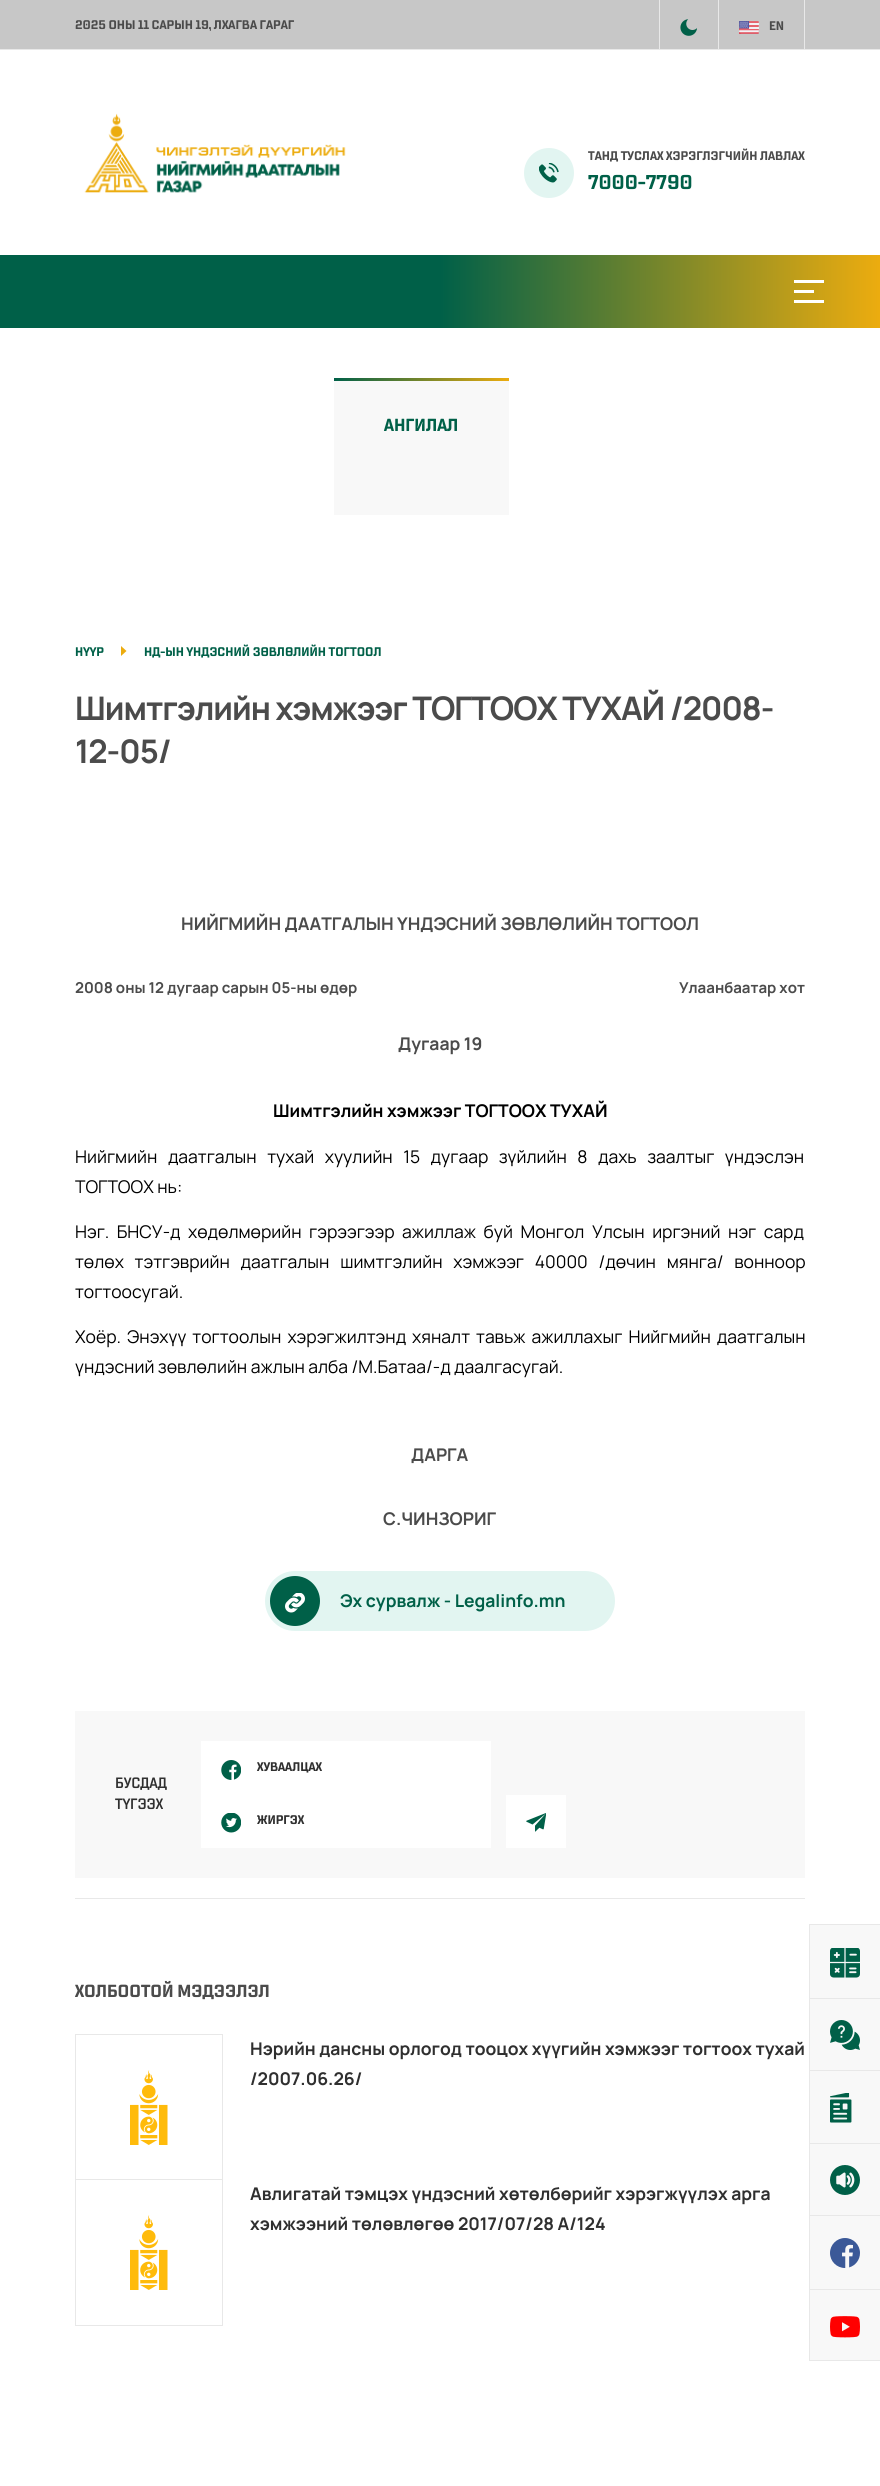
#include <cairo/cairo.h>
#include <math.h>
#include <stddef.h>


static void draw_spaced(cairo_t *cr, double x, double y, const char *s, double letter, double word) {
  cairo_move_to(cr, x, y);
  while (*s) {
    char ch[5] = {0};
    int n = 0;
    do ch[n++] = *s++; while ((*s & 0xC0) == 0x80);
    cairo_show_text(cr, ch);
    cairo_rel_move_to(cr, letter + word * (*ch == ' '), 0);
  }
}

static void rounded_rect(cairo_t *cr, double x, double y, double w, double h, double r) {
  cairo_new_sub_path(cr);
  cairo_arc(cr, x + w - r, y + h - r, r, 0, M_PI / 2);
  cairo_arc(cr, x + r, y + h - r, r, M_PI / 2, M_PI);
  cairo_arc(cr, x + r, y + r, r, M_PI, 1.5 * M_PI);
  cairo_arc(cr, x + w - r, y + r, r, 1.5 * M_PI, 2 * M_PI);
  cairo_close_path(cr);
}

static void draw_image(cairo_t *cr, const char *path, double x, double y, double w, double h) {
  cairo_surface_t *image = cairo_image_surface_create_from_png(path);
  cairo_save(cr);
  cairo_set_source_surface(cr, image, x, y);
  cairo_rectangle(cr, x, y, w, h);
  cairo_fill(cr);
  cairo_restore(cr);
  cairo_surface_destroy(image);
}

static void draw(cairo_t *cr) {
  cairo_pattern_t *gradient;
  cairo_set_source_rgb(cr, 1, 1, 1);
  cairo_paint(cr);
  cairo_set_source_rgb(cr, 199 / 255.0, 199 / 255.0, 199 / 255.0);
  cairo_rectangle(cr, 0, 0, 880, 49);
  cairo_fill(cr);
  cairo_set_source_rgb(cr, 232 / 255.0, 232 / 255.0, 232 / 255.0);
  cairo_rectangle(cr, 0, 49, 880, 1);
  cairo_fill(cr);
  cairo_rectangle(cr, 659, 0, 1, 49);
  cairo_fill(cr);
  draw_image(cr, "images/1.png", 680, 19, 17, 17);
  cairo_rectangle(cr, 804, 0, 1, 49);
  cairo_fill(cr);
  cairo_rectangle(cr, 718, 0, 1, 49);
  cairo_fill(cr);
  draw_image(cr, "images/2.png", 739, 21, 20, 13);
  draw_image(cr, "images/3.png", 84, 113, 262, 80);
  cairo_set_source_rgb(cr, 226 / 255.0, 245 / 255.0, 241 / 255.0);
  cairo_arc(cr, 549, 173, 25, 0, 2 * M_PI);
  cairo_fill(cr);
  draw_image(cr, "images/4.png", 539, 163, 20, 20);
  gradient = cairo_pattern_create_linear(0, 291, 880, 291);
  cairo_pattern_add_color_stop_rgba(gradient, 0.5, 0, 96 / 255.0, 72 / 255.0, 1);
  cairo_pattern_add_color_stop_rgba(gradient, 1, 236 / 255.0, 172 / 255.0, 15 / 255.0, 1);
  cairo_set_source(cr, gradient);
  cairo_pattern_destroy(gradient);
  cairo_rectangle(cr, 0, 255, 880, 73);
  cairo_fill(cr);
  cairo_set_source_rgb(cr, 1, 1, 1);
  cairo_rectangle(cr, 794, 280, 30, 3);
  cairo_fill(cr);
  cairo_rectangle(cr, 794, 290, 20, 3);
  cairo_fill(cr);
  cairo_rectangle(cr, 794, 300, 30, 3);
  cairo_fill(cr);
  cairo_set_source_rgb(cr, 248 / 255.0, 248 / 255.0, 248 / 255.0);
  cairo_rectangle(cr, 334, 381, 175, 134);
  cairo_fill(cr);
  gradient = cairo_pattern_create_linear(334, 379, 509, 379);
  cairo_pattern_add_color_stop_rgba(gradient, 0, 0, 96 / 255.0, 72 / 255.0, 1);
  cairo_pattern_add_color_stop_rgba(gradient, 1, 236 / 255.0, 172 / 255.0, 15 / 255.0, 1);
  cairo_set_source(cr, gradient);
  cairo_pattern_destroy(gradient);
  cairo_rectangle(cr, 334, 378, 175, 3);
  cairo_fill(cr);
  cairo_set_source_rgb(cr, 232 / 255.0, 232 / 255.0, 232 / 255.0);
  cairo_rectangle(cr, 75, 1898, 730, 1);
  cairo_fill(cr);
  cairo_set_source_rgb(cr, 236 / 255.0, 172 / 255.0, 15 / 255.0);
  cairo_new_path(cr);
  cairo_move_to(cr, 121, 656);
  cairo_line_to(cr, 126.5, 651);
  cairo_line_to(cr, 121, 646);
  cairo_close_path(cr);
  cairo_fill(cr);
  cairo_set_source_rgb(cr, 226 / 255.0, 245 / 255.0, 241 / 255.0);
  rounded_rect(cr, 265, 1571, 350, 60, 30);
  cairo_fill(cr);
  cairo_set_source_rgb(cr, 0, 96 / 255.0, 72 / 255.0);
  cairo_arc(cr, 295, 1601, 25, 0, 2 * M_PI);
  cairo_fill(cr);
  draw_image(cr, "images/5.png", 285, 1593, 20, 20);
  cairo_set_source_rgb(cr, 248 / 255.0, 248 / 255.0, 248 / 255.0);
  cairo_rectangle(cr, 75, 1711, 730, 167);
  cairo_fill(cr);
  cairo_set_source_rgb(cr, 1, 1, 1);
  cairo_rectangle(cr, 201, 1741, 290, 107);
  cairo_fill(cr);
  draw_image(cr, "images/6.png", 221, 1760, 20, 20);
  draw_image(cr, "images/7.png", 221, 1813, 20, 20);
  cairo_rectangle(cr, 506, 1795, 60, 53);
  cairo_fill(cr);
  draw_image(cr, "images/8.png", 526, 1813, 20, 19);
  cairo_rectangle(cr, 75.5, 2034.5, 147, 146);
  cairo_set_source_rgb(cr, 232 / 255.0, 232 / 255.0, 232 / 255.0);
  cairo_set_line_width(cr, 1);
  cairo_stroke(cr);
  draw_image(cr, "images/9.png", 130, 2070, 38, 75);
  cairo_set_source_rgb(cr, 1, 1, 1);
  cairo_rectangle(cr, 76, 2180, 146, 1);
  cairo_fill(cr);
  cairo_rectangle(cr, 75.5, 2179.5, 147, 146);
  cairo_set_source_rgb(cr, 232 / 255.0, 232 / 255.0, 232 / 255.0);
  cairo_stroke(cr);
  draw_image(cr, "images/9.png", 130, 2215, 38, 75);
  cairo_set_source_rgb(cr, 248 / 255.0, 248 / 255.0, 248 / 255.0);
  cairo_rectangle(cr, 810, 1925, 70, 73);
  cairo_fill(cr);
  cairo_set_source_rgb(cr, 232 / 255.0, 232 / 255.0, 232 / 255.0);
  cairo_rectangle(cr, 809, 1924, 71, 1);
  cairo_fill(cr);
  cairo_rectangle(cr, 809, 1924, 1, 74);
  cairo_fill(cr);
  draw_image(cr, "images/10.png", 830, 1948, 30, 30);
  cairo_set_source_rgb(cr, 248 / 255.0, 248 / 255.0, 248 / 255.0);
  cairo_rectangle(cr, 810, 1999, 70, 71);
  cairo_fill(cr);
  cairo_set_source_rgb(cr, 232 / 255.0, 232 / 255.0, 232 / 255.0);
  cairo_rectangle(cr, 809, 1998, 71, 1);
  cairo_fill(cr);
  cairo_rectangle(cr, 809, 1998, 1, 72);
  cairo_fill(cr);
  draw_image(cr, "images/11.png", 830, 2020, 30, 30);
  cairo_set_source_rgb(cr, 248 / 255.0, 248 / 255.0, 248 / 255.0);
  cairo_rectangle(cr, 810, 2071, 70, 72);
  cairo_fill(cr);
  cairo_set_source_rgb(cr, 232 / 255.0, 232 / 255.0, 232 / 255.0);
  cairo_rectangle(cr, 809, 2070, 71, 1);
  cairo_fill(cr);
  cairo_rectangle(cr, 809, 2070, 1, 73);
  cairo_fill(cr);
  draw_image(cr, "images/12.png", 830, 2093, 22, 30);
  cairo_set_source_rgb(cr, 248 / 255.0, 248 / 255.0, 248 / 255.0);
  cairo_rectangle(cr, 810, 2144, 70, 71);
  cairo_fill(cr);
  cairo_set_source_rgb(cr, 232 / 255.0, 232 / 255.0, 232 / 255.0);
  cairo_rectangle(cr, 809, 2143, 71, 1);
  cairo_fill(cr);
  cairo_rectangle(cr, 809, 2143, 1, 72);
  cairo_fill(cr);
  draw_image(cr, "images/13.png", 830, 2165, 30, 30);
  cairo_set_source_rgb(cr, 248 / 255.0, 248 / 255.0, 248 / 255.0);
  cairo_rectangle(cr, 810, 2216, 70, 73);
  cairo_fill(cr);
  cairo_set_source_rgb(cr, 232 / 255.0, 232 / 255.0, 232 / 255.0);
  cairo_rectangle(cr, 809, 2215, 71, 1);
  cairo_fill(cr);
  cairo_rectangle(cr, 809, 2215, 1, 74);
  cairo_fill(cr);
  draw_image(cr, "images/14.png", 830, 2238, 30, 30);
  cairo_set_source_rgb(cr, 248 / 255.0, 248 / 255.0, 248 / 255.0);
  cairo_rectangle(cr, 810, 2290, 70, 70);
  cairo_fill(cr);
  cairo_set_source_rgb(cr, 232 / 255.0, 232 / 255.0, 232 / 255.0);
  cairo_rectangle(cr, 809, 2289, 71, 1);
  cairo_fill(cr);
  cairo_rectangle(cr, 809, 2360, 71, 1);
  cairo_fill(cr);
  cairo_rectangle(cr, 809, 2289, 1, 72);
  cairo_fill(cr);
  draw_image(cr, "images/15.png", 830, 2316, 30, 22);
  cairo_select_font_face(cr, "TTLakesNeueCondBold", CAIRO_FONT_SLANT_NORMAL, CAIRO_FONT_WEIGHT_BOLD);
  cairo_set_font_size(cr, 12.5);
  cairo_set_source_rgb(cr, 75 / 255.0, 75 / 255.0, 75 / 255.0);
  cairo_move_to(cr, 75, 29);
  cairo_show_text(cr, "2025 ОНЫ 11 САРЫН 19, ЛХАГВА ГАРАГ");
  cairo_move_to(cr, 769, 30);
  cairo_show_text(cr, "EN");
  cairo_move_to(cr, 588, 160);
  cairo_show_text(cr, "ТАНД ТУСЛАХ ХЭРЭГЛЭГЧИЙН ЛАВЛАХ");
  cairo_set_font_size(cr, 20);
  cairo_set_source_rgb(cr, 0, 96 / 255.0, 72 / 255.0);
  cairo_move_to(cr, 588, 189);
  cairo_show_text(cr, "7000-7790");
  cairo_set_font_size(cr, 17.5);
  cairo_move_to(cr, 384, 431);
  cairo_show_text(cr, "АНГИЛАЛ");
  cairo_set_font_size(cr, 12.5);
  cairo_move_to(cr, 75, 656);
  cairo_show_text(cr, "НҮҮР");
  cairo_move_to(cr, 144, 656);
  cairo_show_text(cr, "НД-ЫН ҮНДЭСНИЙ ЗӨВЛӨЛИЙН ТОГТООЛ");
  cairo_select_font_face(cr, "Manrope", CAIRO_FONT_SLANT_NORMAL, CAIRO_FONT_WEIGHT_BOLD);
  cairo_set_font_size(cr, 32.5);
  cairo_set_source_rgb(cr, 75 / 255.0, 75 / 255.0, 75 / 255.0);
  draw_spaced(cr, 75, 720, "Шимтгэлийн хэмжээг ТОГТООХ ТУХАЙ /2008-", -1, 0);
  draw_spaced(cr, 75, 763, "12-05/", -1, 0);
  cairo_set_font_size(cr, 17.5);
  cairo_move_to(cr, 181, 930);
  cairo_show_text(cr, "НИЙГМИЙН ДААТГАЛЫН ҮНДЭСНИЙ ЗӨВЛӨЛИЙН ТОГТООЛ");
  cairo_set_font_size(cr, 15);
  cairo_move_to(cr, 75, 993);
  cairo_show_text(cr, "2008 оны 12 дугаар сарын 05-ны өдөр");
  cairo_move_to(cr, 679, 993);
  cairo_show_text(cr, "Улаанбаатар хот");
  cairo_set_font_size(cr, 17.5);
  cairo_move_to(cr, 398, 1050);
  cairo_show_text(cr, "Дугаар 19");
  cairo_set_source_rgb(cr, 0, 0, 0);
  cairo_move_to(cr, 273, 1117);
  cairo_show_text(cr, "Шимтгэлийн хэмжээг ТОГТООХ ТУХАЙ");
  cairo_select_font_face(cr, "Manrope", CAIRO_FONT_SLANT_NORMAL, CAIRO_FONT_WEIGHT_NORMAL);
  draw_spaced(cr, 75, 1163, "Нийгмийн даатгалын тухай хуулийн 15 дугаар зүйлийн 8 дахь заалтыг үндэслэн", 0, 7);
  cairo_move_to(cr, 75, 1193);
  cairo_show_text(cr, "ТОГТООХ нь:");
  draw_spaced(cr, 75, 1238, "Нэг. БНСУ-д хөдөлмөрийн гэрээгээр ажиллаж буй Монгол Улсын иргэний нэг сард", 0, 4);
  draw_spaced(cr, 75, 1268, "төлөх тэтгэврийн даатгалын шимтгэлийн хэмжээг 40000 /дөчин мянга/ вонноор", 0, 7.25);
  cairo_move_to(cr, 75, 1298);
  cairo_show_text(cr, "тогтоосугай.");
  draw_spaced(cr, 75, 1343, "Хоёр. Энэхүү тогтоолын хэрэгжилтэнд хяналт тавьж ажиллахыг Нийгмийн даатгалын", 0, 2.5);
  cairo_move_to(cr, 75, 1373);
  cairo_show_text(cr, "үндэсний зөвлөлийн ажлын алба /М.Батаа/-д даалгасугай.");
  cairo_select_font_face(cr, "Manrope", CAIRO_FONT_SLANT_NORMAL, CAIRO_FONT_WEIGHT_BOLD);
  cairo_set_source_rgb(cr, 75 / 255.0, 75 / 255.0, 75 / 255.0);
  cairo_move_to(cr, 411, 1461);
  cairo_show_text(cr, "ДАРГА");
  cairo_move_to(cr, 383, 1525);
  cairo_show_text(cr, "С.ЧИНЗОРИГ");
  cairo_set_source_rgb(cr, 0, 96 / 255.0, 72 / 255.0);
  cairo_move_to(cr, 340, 1607);
  cairo_show_text(cr, "Эх сурвалж - Legalinfo.mn");
  cairo_select_font_face(cr, "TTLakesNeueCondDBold", CAIRO_FONT_SLANT_NORMAL, CAIRO_FONT_WEIGHT_BOLD);
  cairo_set_font_size(cr, 15);
  cairo_set_source_rgb(cr, 47 / 255.0, 47 / 255.0, 47 / 255.0);
  cairo_move_to(cr, 115, 1788);
  cairo_show_text(cr, "БУСДАД");
  cairo_move_to(cr, 115, 1809);
  cairo_show_text(cr, "ТҮГЭЭХ");
  cairo_select_font_face(cr, "TTLakesNeueCondBold", CAIRO_FONT_SLANT_NORMAL, CAIRO_FONT_WEIGHT_BOLD);
  cairo_set_font_size(cr, 12.5);
  cairo_move_to(cr, 257, 1771);
  cairo_show_text(cr, "ХУВААЛЦАХ");
  cairo_move_to(cr, 257, 1824);
  cairo_show_text(cr, "ЖИРГЭХ");
  cairo_set_font_size(cr, 17.5);
  cairo_set_source_rgb(cr, 75 / 255.0, 75 / 255.0, 75 / 255.0);
  cairo_move_to(cr, 75, 1997);
  cairo_show_text(cr, "ХОЛБООТОЙ МЭДЭЭЛЭЛ");
  cairo_select_font_face(cr, "Manrope", CAIRO_FONT_SLANT_NORMAL, CAIRO_FONT_WEIGHT_BOLD);
  cairo_set_source_rgb(cr, 47 / 255.0, 47 / 255.0, 47 / 255.0);
  cairo_move_to(cr, 250, 2055);
  cairo_show_text(cr, "Нэрийн дансны орлогод тооцох хүүгийн хэмжээг тогтоох тухай");
  cairo_move_to(cr, 250, 2085);
  cairo_show_text(cr, "/2007.06.26/");
  cairo_move_to(cr, 250, 2200);
  cairo_show_text(cr, "Авлигатай тэмцэх үндэсний хөтөлбөрийг хэрэгжүүлэх арга");
  cairo_move_to(cr, 250, 2230);
  cairo_show_text(cr, "хэмжээний төлөвлөгөө 2017/07/28 А/124");
}

int main(void) {
  cairo_surface_t *surface = cairo_image_surface_create(CAIRO_FORMAT_RGB24, 880, 2486);
  cairo_t *cr = cairo_create(surface);
  cairo_font_options_t *options = cairo_font_options_create();
  cairo_font_options_set_hint_metrics(options, CAIRO_HINT_METRICS_OFF);
  cairo_font_options_set_hint_style(options, CAIRO_HINT_STYLE_NONE);
  cairo_set_font_options(cr, options);
  cairo_set_miter_limit(cr, 4);
  draw(cr);
  cairo_surface_write_to_png(surface, "out.png");
  cairo_font_options_destroy(options);
  cairo_destroy(cr);
  cairo_surface_destroy(surface);
  return 0;
}
